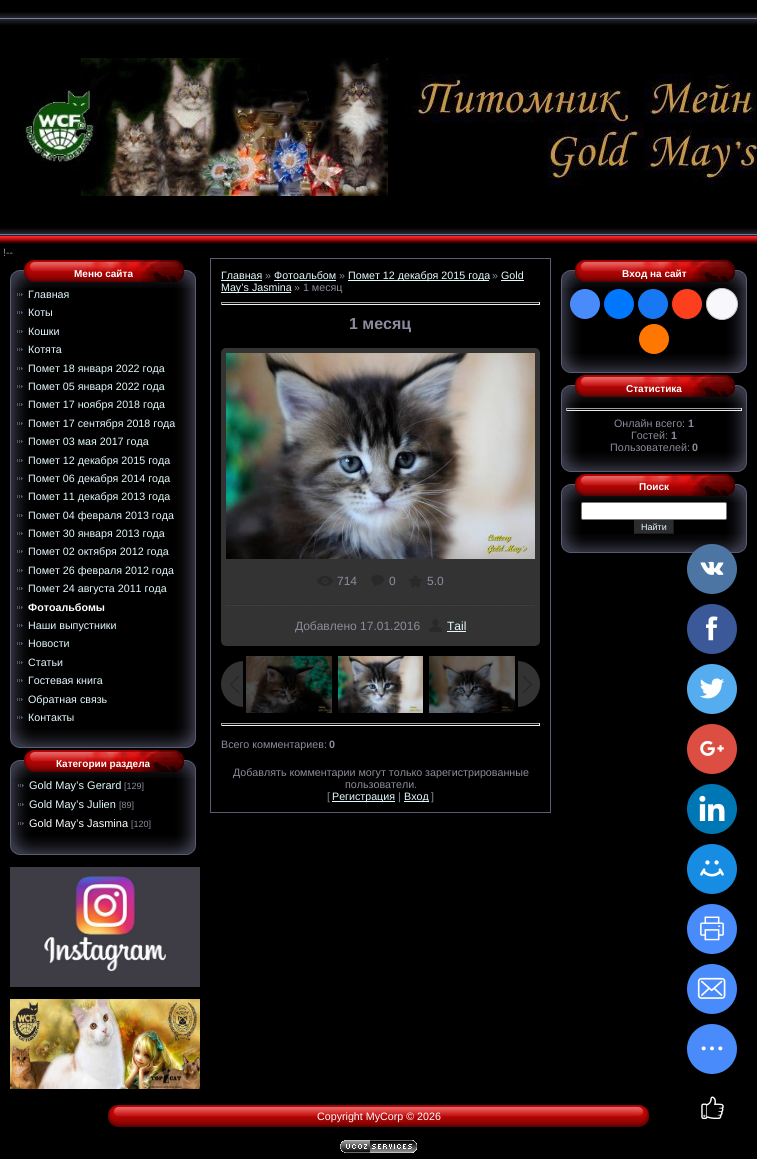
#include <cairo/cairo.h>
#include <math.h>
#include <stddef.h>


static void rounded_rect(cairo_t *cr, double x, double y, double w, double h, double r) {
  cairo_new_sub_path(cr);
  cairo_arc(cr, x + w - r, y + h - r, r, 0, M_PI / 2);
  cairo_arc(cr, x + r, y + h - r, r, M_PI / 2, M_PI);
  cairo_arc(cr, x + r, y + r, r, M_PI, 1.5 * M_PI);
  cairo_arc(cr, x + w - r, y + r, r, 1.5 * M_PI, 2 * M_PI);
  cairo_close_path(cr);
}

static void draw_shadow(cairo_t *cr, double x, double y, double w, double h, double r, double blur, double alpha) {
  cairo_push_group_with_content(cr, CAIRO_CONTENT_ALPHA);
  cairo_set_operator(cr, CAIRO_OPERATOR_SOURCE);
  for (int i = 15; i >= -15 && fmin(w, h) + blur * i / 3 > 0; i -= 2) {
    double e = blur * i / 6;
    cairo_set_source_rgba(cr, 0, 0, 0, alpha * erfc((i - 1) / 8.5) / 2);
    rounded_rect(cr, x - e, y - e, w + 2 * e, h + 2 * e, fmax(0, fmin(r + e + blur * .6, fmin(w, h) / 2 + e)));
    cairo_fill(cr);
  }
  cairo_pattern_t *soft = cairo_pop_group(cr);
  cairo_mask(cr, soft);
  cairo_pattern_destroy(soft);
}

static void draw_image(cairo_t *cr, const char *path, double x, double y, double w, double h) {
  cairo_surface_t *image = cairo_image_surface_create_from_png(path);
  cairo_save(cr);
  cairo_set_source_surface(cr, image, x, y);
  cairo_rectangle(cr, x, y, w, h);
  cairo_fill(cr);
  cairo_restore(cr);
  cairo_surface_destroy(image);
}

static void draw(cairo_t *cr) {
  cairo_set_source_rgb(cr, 0, 0, 0);
  cairo_paint(cr);
  draw_image(cr, "images/1.png", 0, 12, 757, 232);
  draw_image(cr, "images/2.png", 22, 58, 366, 138);
  draw_image(cr, "images/3.png", 404, 73, 353, 114);
  draw_image(cr, "images/4.png", 10, 258, 186, 30);
  draw_image(cr, "images/5.png", 10, 288, 186, 441);
  draw_image(cr, "images/6.png", 17, 293, 6, 3);
  draw_image(cr, "images/6.png", 17, 311, 6, 3);
  draw_image(cr, "images/6.png", 17, 330, 6, 3);
  draw_image(cr, "images/6.png", 17, 348, 6, 3);
  draw_image(cr, "images/6.png", 17, 367, 6, 3);
  draw_image(cr, "images/6.png", 17, 385, 6, 3);
  draw_image(cr, "images/6.png", 17, 403, 6, 3);
  draw_image(cr, "images/6.png", 17, 422, 6, 3);
  draw_image(cr, "images/6.png", 17, 440, 6, 3);
  draw_image(cr, "images/6.png", 17, 459, 6, 3);
  draw_image(cr, "images/6.png", 17, 477, 6, 3);
  draw_image(cr, "images/6.png", 17, 495, 6, 3);
  draw_image(cr, "images/6.png", 17, 514, 6, 3);
  draw_image(cr, "images/6.png", 17, 532, 6, 3);
  draw_image(cr, "images/6.png", 17, 550, 6, 3);
  draw_image(cr, "images/6.png", 17, 569, 6, 3);
  draw_image(cr, "images/6.png", 17, 587, 6, 3);
  draw_image(cr, "images/6.png", 17, 606, 6, 3);
  draw_image(cr, "images/6.png", 17, 624, 6, 3);
  draw_image(cr, "images/6.png", 17, 642, 6, 3);
  draw_image(cr, "images/6.png", 17, 661, 6, 3);
  draw_image(cr, "images/6.png", 17, 679, 6, 3);
  draw_image(cr, "images/6.png", 17, 698, 6, 3);
  draw_image(cr, "images/6.png", 17, 716, 6, 3);
  draw_image(cr, "images/7.png", 10, 729, 186, 19);
  draw_image(cr, "images/4.png", 10, 748, 186, 30);
  draw_image(cr, "images/8.png", 10, 778, 186, 58);
  draw_image(cr, "images/9.png", 18, 784, 6, 3);
  draw_image(cr, "images/9.png", 18, 803, 6, 3);
  draw_image(cr, "images/9.png", 18, 822, 6, 3);
  draw_image(cr, "images/7.png", 10, 836, 186, 19);
  draw_image(cr, "images/10.png", 10, 867, 190, 120);
  draw_image(cr, "images/11.png", 10, 999, 190, 90);
  cairo_rectangle(cr, 210.5, 258.5, 340, 554);
  cairo_set_source_rgb(cr, 91 / 255.0, 92 / 255.0, 116 / 255.0);
  cairo_set_line_width(cr, 1);
  cairo_stroke(cr);
  cairo_set_source_rgb(cr, 228 / 255.0, 250 / 255.0, 253 / 255.0);
  cairo_rectangle(cr, 221, 280, 41, 1);
  cairo_fill(cr);
  cairo_rectangle(cr, 274, 280, 62, 1);
  cairo_fill(cr);
  cairo_rectangle(cr, 348, 280, 141, 1);
  cairo_fill(cr);
  cairo_rectangle(cr, 501, 280, 23, 1);
  cairo_fill(cr);
  cairo_rectangle(cr, 221, 292, 70, 1);
  cairo_fill(cr);
  cairo_set_source_rgb(cr, 159 / 255.0, 159 / 255.0, 159 / 255.0);
  cairo_rectangle(cr, 221, 302, 319, 1);
  cairo_fill(cr);
  cairo_set_source_rgb(cr, 238 / 255.0, 238 / 255.0, 238 / 255.0);
  cairo_rectangle(cr, 539, 302, 1, 3);
  cairo_fill(cr);
  cairo_rectangle(cr, 221, 304, 319, 1);
  cairo_fill(cr);
  cairo_set_source_rgb(cr, 159 / 255.0, 159 / 255.0, 159 / 255.0);
  cairo_rectangle(cr, 221, 302, 1, 3);
  cairo_fill(cr);
  draw_image(cr, "images/12.png", 221, 348, 319, 298);
  draw_image(cr, "images/13.png", 226, 353, 309, 206);
  draw_image(cr, "images/14.png", 317, 576, 16, 10);
  draw_image(cr, "images/15.png", 371, 575, 13, 12);
  draw_image(cr, "images/16.png", 409, 575, 13, 13);
  draw_image(cr, "images/17.png", 226, 604, 308, 2);
  draw_image(cr, "images/18.png", 429, 619, 13, 13);
  cairo_set_source_rgb(cr, 228 / 255.0, 250 / 255.0, 253 / 255.0);
  cairo_rectangle(cr, 447, 631, 19, 1);
  cairo_fill(cr);
  draw_image(cr, "images/19.png", 221, 661, 22, 46);
  draw_image(cr, "images/20.png", 246, 656, 86, 57);
  draw_image(cr, "images/21.png", 338, 656, 85, 57);
  draw_image(cr, "images/22.png", 429, 656, 86, 57);
  draw_image(cr, "images/23.png", 518, 661, 22, 46);
  cairo_set_source_rgb(cr, 159 / 255.0, 159 / 255.0, 159 / 255.0);
  cairo_rectangle(cr, 221, 723, 319, 1);
  cairo_fill(cr);
  cairo_set_source_rgb(cr, 238 / 255.0, 238 / 255.0, 238 / 255.0);
  cairo_rectangle(cr, 539, 723, 1, 3);
  cairo_fill(cr);
  cairo_rectangle(cr, 221, 725, 319, 1);
  cairo_fill(cr);
  cairo_set_source_rgb(cr, 159 / 255.0, 159 / 255.0, 159 / 255.0);
  cairo_rectangle(cr, 221, 723, 1, 3);
  cairo_fill(cr);
  cairo_set_source_rgb(cr, 228 / 255.0, 250 / 255.0, 253 / 255.0);
  cairo_rectangle(cr, 332, 801, 63, 1);
  cairo_fill(cr);
  cairo_rectangle(cr, 404, 801, 25, 1);
  cairo_fill(cr);
  draw_image(cr, "images/4.png", 561, 258, 186, 30);
  draw_image(cr, "images/24.png", 561, 288, 186, 66);
  cairo_set_source_rgb(cr, 73 / 255.0, 139 / 255.0, 250 / 255.0);
  cairo_arc(cr, 585, 304, 15, 0, 2 * M_PI);
  cairo_fill(cr);
  cairo_set_source_rgb(cr, 0, 119 / 255.0, 1);
  cairo_arc(cr, 619, 304, 15, 0, 2 * M_PI);
  cairo_fill(cr);
  cairo_set_source_rgb(cr, 24 / 255.0, 119 / 255.0, 242 / 255.0);
  cairo_arc(cr, 653, 304, 15, 0, 2 * M_PI);
  cairo_fill(cr);
  cairo_set_source_rgb(cr, 252 / 255.0, 63 / 255.0, 29 / 255.0);
  cairo_arc(cr, 687, 304, 15, 0, 2 * M_PI);
  cairo_fill(cr);
  cairo_set_source_rgb(cr, 248 / 255.0, 248 / 255.0, 252 / 255.0);
  cairo_arc(cr, 722, 304, 15.5, 0, 2 * M_PI);
  cairo_fill_preserve(cr);
  cairo_set_source_rgb(cr, 196 / 255.0, 196 / 255.0, 196 / 255.0);
  cairo_stroke(cr);
  cairo_set_source_rgb(cr, 1, 119 / 255.0, 0);
  cairo_arc(cr, 654, 339, 15, 0, 2 * M_PI);
  cairo_fill(cr);
  draw_image(cr, "images/7.png", 561, 354, 186, 19);
  draw_image(cr, "images/4.png", 561, 373, 186, 30);
  draw_image(cr, "images/25.png", 561, 403, 186, 50);
  cairo_set_source_rgb(cr, 159 / 255.0, 159 / 255.0, 159 / 255.0);
  cairo_rectangle(cr, 566, 408, 176, 1);
  cairo_fill(cr);
  cairo_set_source_rgb(cr, 238 / 255.0, 238 / 255.0, 238 / 255.0);
  cairo_rectangle(cr, 741, 408, 1, 3);
  cairo_fill(cr);
  cairo_rectangle(cr, 566, 410, 176, 1);
  cairo_fill(cr);
  cairo_set_source_rgb(cr, 159 / 255.0, 159 / 255.0, 159 / 255.0);
  cairo_rectangle(cr, 566, 408, 1, 3);
  cairo_fill(cr);
  draw_image(cr, "images/7.png", 561, 453, 186, 19);
  draw_image(cr, "images/4.png", 561, 472, 186, 30);
  draw_image(cr, "images/26.png", 561, 502, 186, 32);
  cairo_set_source_rgb(cr, 1, 1, 1);
  rounded_rect(cr, 581.5, 502.5, 145, 17, 1.5);
  cairo_fill_preserve(cr);
  cairo_set_source_rgb(cr, 118 / 255.0, 118 / 255.0, 118 / 255.0);
  cairo_stroke(cr);
  cairo_set_source_rgb(cr, 43 / 255.0, 43 / 255.0, 48 / 255.0);
  cairo_rectangle(cr, 635, 520, 38, 13);
  cairo_fill(cr);
  cairo_set_source_rgb(cr, 29 / 255.0, 29 / 255.0, 32 / 255.0);
  cairo_rectangle(cr, 673, 520, 1, 14);
  cairo_fill(cr);
  cairo_rectangle(cr, 634, 533, 40, 1);
  cairo_fill(cr);
  cairo_set_source_rgb(cr, 43 / 255.0, 43 / 255.0, 48 / 255.0);
  cairo_rectangle(cr, 634, 520, 1, 14);
  cairo_fill(cr);
  draw_image(cr, "images/7.png", 561, 534, 186, 19);
  cairo_set_source_rgb(cr, 0, 0, 0);
  draw_shadow(cr, 686, 545, 50, 50, 25, 2.5, 0.2);
  cairo_set_source_rgb(cr, 77 / 255.0, 117 / 255.0, 163 / 255.0);
  cairo_arc(cr, 712, 569, 25, 0, 2 * M_PI);
  cairo_fill(cr);
  draw_image(cr, "images/27.png", 700, 561, 24, 14);
  cairo_set_source_rgb(cr, 59 / 255.0, 89 / 255.0, 152 / 255.0);
  cairo_arc(cr, 712, 629, 25, 0, 2 * M_PI);
  cairo_fill(cr);
  draw_image(cr, "images/28.png", 706, 616, 12, 25);
  cairo_set_source_rgb(cr, 85 / 255.0, 172 / 255.0, 238 / 255.0);
  cairo_arc(cr, 712, 689, 25, 0, 2 * M_PI);
  cairo_fill(cr);
  draw_image(cr, "images/29.png", 700, 678, 25, 21);
  cairo_set_source_rgb(cr, 220 / 255.0, 78 / 255.0, 65 / 255.0);
  cairo_arc(cr, 712, 749, 25, 0, 2 * M_PI);
  cairo_fill(cr);
  draw_image(cr, "images/30.png", 700, 740, 24, 16);
  cairo_set_source_rgb(cr, 0, 119 / 255.0, 181 / 255.0);
  cairo_arc(cr, 712, 809, 25, 0, 2 * M_PI);
  cairo_fill(cr);
  draw_image(cr, "images/31.png", 699, 795, 26, 26);
  cairo_set_source_rgb(cr, 22 / 255.0, 141 / 255.0, 226 / 255.0);
  cairo_arc(cr, 712, 869, 25, 0, 2 * M_PI);
  cairo_fill(cr);
  draw_image(cr, "images/32.png", 700, 860, 24, 17);
  cairo_set_source_rgb(cr, 73 / 255.0, 139 / 255.0, 250 / 255.0);
  cairo_arc(cr, 712, 929, 25, 0, 2 * M_PI);
  cairo_fill(cr);
  draw_image(cr, "images/33.png", 700, 916, 24, 25);
  cairo_arc(cr, 712, 989, 25, 0, 2 * M_PI);
  cairo_fill(cr);
  draw_image(cr, "images/34.png", 697, 977, 29, 22);
  cairo_arc(cr, 712, 1049, 25, 0, 2 * M_PI);
  cairo_fill(cr);
  draw_image(cr, "images/35.png", 701, 1046, 22, 5);
  draw_image(cr, "images/36.png", 701, 1096, 23, 23);
  draw_image(cr, "images/37.png", 108, 1105, 33, 22);
  draw_image(cr, "images/38.png", 141, 1105, 475, 22);
  draw_image(cr, "images/39.png", 616, 1105, 33, 22);
  draw_image(cr, "images/40.png", 340, 1140, 77, 13);
  cairo_select_font_face(cr, "Liberation Sans", CAIRO_FONT_SLANT_NORMAL, CAIRO_FONT_WEIGHT_NORMAL);
  cairo_set_font_size(cr, 10.7);
  cairo_set_source_rgb(cr, 140 / 255.0, 140 / 255.0, 156 / 255.0);
  cairo_move_to(cr, 3, 256);
  cairo_show_text(cr, "!--");
  cairo_select_font_face(cr, "Liberation Sans", CAIRO_FONT_SLANT_NORMAL, CAIRO_FONT_WEIGHT_BOLD);
  cairo_set_font_size(cr, 10);
  cairo_set_source_rgb(cr, 1, 1, 1);
  cairo_move_to(cr, 74, 277);
  cairo_show_text(cr, "Меню сайта");
  cairo_select_font_face(cr, "Liberation Sans", CAIRO_FONT_SLANT_NORMAL, CAIRO_FONT_WEIGHT_NORMAL);
  cairo_set_font_size(cr, 10.7);
  cairo_set_source_rgb(cr, 228 / 255.0, 250 / 255.0, 253 / 255.0);
  cairo_move_to(cr, 28, 298);
  cairo_show_text(cr, "Главная");
  cairo_move_to(cr, 28, 316);
  cairo_show_text(cr, "Коты");
  cairo_move_to(cr, 28, 335);
  cairo_show_text(cr, "Кошки");
  cairo_move_to(cr, 28, 353);
  cairo_show_text(cr, "Котята");
  cairo_move_to(cr, 28, 372);
  cairo_show_text(cr, "Помет 18 января 2022 года");
  cairo_move_to(cr, 28, 390);
  cairo_show_text(cr, "Помет 05 января 2022 года");
  cairo_move_to(cr, 28, 408);
  cairo_show_text(cr, "Помет 17 ноября 2018 года");
  cairo_move_to(cr, 28, 427);
  cairo_show_text(cr, "Помет 17 сентября 2018 года");
  cairo_move_to(cr, 28, 445);
  cairo_show_text(cr, "Помет 03 мая 2017 года");
  cairo_move_to(cr, 28, 464);
  cairo_show_text(cr, "Помет 12 декабря 2015 года");
  cairo_move_to(cr, 28, 482);
  cairo_show_text(cr, "Помет 06 декабря 2014 года");
  cairo_move_to(cr, 28, 500);
  cairo_show_text(cr, "Помет 11 декабря 2013 года");
  cairo_move_to(cr, 28, 519);
  cairo_show_text(cr, "Помет 04 февраля 2013 года");
  cairo_move_to(cr, 28, 537);
  cairo_show_text(cr, "Помет 30 января 2013 года");
  cairo_move_to(cr, 28, 555);
  cairo_show_text(cr, "Помет 02 октября 2012 года");
  cairo_move_to(cr, 28, 574);
  cairo_show_text(cr, "Помет 26 февраля 2012 года");
  cairo_move_to(cr, 28, 592);
  cairo_show_text(cr, "Помет 24 августа 2011 года");
  cairo_select_font_face(cr, "Liberation Sans", CAIRO_FONT_SLANT_NORMAL, CAIRO_FONT_WEIGHT_BOLD);
  cairo_set_source_rgb(cr, 1, 1, 1);
  cairo_move_to(cr, 28, 611);
  cairo_show_text(cr, "Фотоальбомы");
  cairo_select_font_face(cr, "Liberation Sans", CAIRO_FONT_SLANT_NORMAL, CAIRO_FONT_WEIGHT_NORMAL);
  cairo_set_source_rgb(cr, 228 / 255.0, 250 / 255.0, 253 / 255.0);
  cairo_move_to(cr, 28, 629);
  cairo_show_text(cr, "Наши выпустники");
  cairo_move_to(cr, 28, 647);
  cairo_show_text(cr, "Новости");
  cairo_move_to(cr, 28, 666);
  cairo_show_text(cr, "Статьи");
  cairo_move_to(cr, 28, 684);
  cairo_show_text(cr, "Гостевая книга");
  cairo_move_to(cr, 28, 703);
  cairo_show_text(cr, "Обратная связь");
  cairo_move_to(cr, 28, 721);
  cairo_show_text(cr, "Контакты");
  cairo_select_font_face(cr, "Liberation Sans", CAIRO_FONT_SLANT_NORMAL, CAIRO_FONT_WEIGHT_BOLD);
  cairo_set_font_size(cr, 10);
  cairo_set_source_rgb(cr, 1, 1, 1);
  cairo_move_to(cr, 56, 767);
  cairo_show_text(cr, "Категории раздела");
  cairo_select_font_face(cr, "Liberation Sans", CAIRO_FONT_SLANT_NORMAL, CAIRO_FONT_WEIGHT_NORMAL);
  cairo_set_font_size(cr, 11);
  cairo_set_source_rgb(cr, 228 / 255.0, 250 / 255.0, 253 / 255.0);
  cairo_move_to(cr, 29, 789);
  cairo_show_text(cr, "Gold May’s Gerard");
  cairo_set_font_size(cr, 9);
  cairo_set_source_rgb(cr, 140 / 255.0, 140 / 255.0, 156 / 255.0);
  cairo_move_to(cr, 124, 789);
  cairo_show_text(cr, "[129]");
  cairo_set_font_size(cr, 11);
  cairo_set_source_rgb(cr, 228 / 255.0, 250 / 255.0, 253 / 255.0);
  cairo_move_to(cr, 29, 808);
  cairo_show_text(cr, "Gold May’s Julien");
  cairo_set_font_size(cr, 9);
  cairo_set_source_rgb(cr, 140 / 255.0, 140 / 255.0, 156 / 255.0);
  cairo_move_to(cr, 119, 808);
  cairo_show_text(cr, "[89]");
  cairo_set_font_size(cr, 11);
  cairo_set_source_rgb(cr, 1, 1, 1);
  cairo_move_to(cr, 29, 827);
  cairo_show_text(cr, "Gold May’s Jasmina");
  cairo_set_font_size(cr, 9);
  cairo_set_source_rgb(cr, 140 / 255.0, 140 / 255.0, 156 / 255.0);
  cairo_move_to(cr, 131, 827);
  cairo_show_text(cr, "[120]");
  cairo_set_font_size(cr, 10.7);
  cairo_set_source_rgb(cr, 228 / 255.0, 250 / 255.0, 253 / 255.0);
  cairo_move_to(cr, 221, 279);
  cairo_show_text(cr, "Главная");
  cairo_set_source_rgb(cr, 140 / 255.0, 140 / 255.0, 156 / 255.0);
  cairo_move_to(cr, 265, 279);
  cairo_show_text(cr, "»");
  cairo_set_source_rgb(cr, 228 / 255.0, 250 / 255.0, 253 / 255.0);
  cairo_move_to(cr, 274, 279);
  cairo_show_text(cr, "Фотоальбом");
  cairo_set_source_rgb(cr, 140 / 255.0, 140 / 255.0, 156 / 255.0);
  cairo_move_to(cr, 339, 279);
  cairo_show_text(cr, "»");
  cairo_set_source_rgb(cr, 228 / 255.0, 250 / 255.0, 253 / 255.0);
  cairo_move_to(cr, 348, 279);
  cairo_show_text(cr, "Помет 12 декабря 2015 года");
  cairo_set_source_rgb(cr, 140 / 255.0, 140 / 255.0, 156 / 255.0);
  cairo_move_to(cr, 492, 279);
  cairo_show_text(cr, "»");
  cairo_set_source_rgb(cr, 228 / 255.0, 250 / 255.0, 253 / 255.0);
  cairo_move_to(cr, 501, 279);
  cairo_show_text(cr, "Gold");
  cairo_move_to(cr, 221, 291);
  cairo_show_text(cr, "May’s Jasmina");
  cairo_set_source_rgb(cr, 140 / 255.0, 140 / 255.0, 156 / 255.0);
  cairo_move_to(cr, 294, 291);
  cairo_show_text(cr, "» 1 месяц");
  cairo_select_font_face(cr, "Liberation Sans", CAIRO_FONT_SLANT_NORMAL, CAIRO_FONT_WEIGHT_BOLD);
  cairo_set_font_size(cr, 16);
  cairo_move_to(cr, 349, 329);
  cairo_show_text(cr, "1 месяц");
  cairo_select_font_face(cr, "Liberation Sans", CAIRO_FONT_SLANT_NORMAL, CAIRO_FONT_WEIGHT_NORMAL);
  cairo_set_font_size(cr, 12);
  cairo_move_to(cr, 337, 585);
  cairo_show_text(cr, "714");
  cairo_move_to(cr, 389, 585);
  cairo_show_text(cr, "0");
  cairo_move_to(cr, 427, 585);
  cairo_show_text(cr, "5.0");
  cairo_move_to(cr, 295, 630);
  cairo_show_text(cr, "Добавлено 17.01.2016");
  cairo_set_source_rgb(cr, 228 / 255.0, 250 / 255.0, 253 / 255.0);
  cairo_move_to(cr, 447, 630);
  cairo_show_text(cr, "Tail");
  cairo_set_font_size(cr, 10.7);
  cairo_set_source_rgb(cr, 140 / 255.0, 140 / 255.0, 156 / 255.0);
  cairo_move_to(cr, 221, 748);
  cairo_show_text(cr, "Всего комментариев:");
  cairo_select_font_face(cr, "Liberation Sans", CAIRO_FONT_SLANT_NORMAL, CAIRO_FONT_WEIGHT_BOLD);
  cairo_move_to(cr, 329, 748);
  cairo_show_text(cr, "0");
  cairo_select_font_face(cr, "Liberation Sans", CAIRO_FONT_SLANT_NORMAL, CAIRO_FONT_WEIGHT_NORMAL);
  cairo_move_to(cr, 233, 776);
  cairo_show_text(cr, "Добавлять комментарии могут только зарегистрированные");
  cairo_move_to(cr, 345, 788);
  cairo_show_text(cr, "пользователи.");
  cairo_move_to(cr, 327, 800);
  cairo_show_text(cr, "[");
  cairo_set_source_rgb(cr, 228 / 255.0, 250 / 255.0, 253 / 255.0);
  cairo_move_to(cr, 332, 800);
  cairo_show_text(cr, "Регистрация");
  cairo_set_source_rgb(cr, 140 / 255.0, 140 / 255.0, 156 / 255.0);
  cairo_move_to(cr, 398, 800);
  cairo_show_text(cr, "|");
  cairo_set_source_rgb(cr, 228 / 255.0, 250 / 255.0, 253 / 255.0);
  cairo_move_to(cr, 404, 800);
  cairo_show_text(cr, "Вход");
  cairo_set_source_rgb(cr, 140 / 255.0, 140 / 255.0, 156 / 255.0);
  cairo_move_to(cr, 431, 800);
  cairo_show_text(cr, "]");
  cairo_select_font_face(cr, "Liberation Sans", CAIRO_FONT_SLANT_NORMAL, CAIRO_FONT_WEIGHT_BOLD);
  cairo_set_font_size(cr, 10);
  cairo_set_source_rgb(cr, 1, 1, 1);
  cairo_move_to(cr, 622, 277);
  cairo_show_text(cr, "Вход на сайт");
  cairo_move_to(cr, 626, 392);
  cairo_show_text(cr, "Статистика");
  cairo_select_font_face(cr, "Liberation Sans", CAIRO_FONT_SLANT_NORMAL, CAIRO_FONT_WEIGHT_NORMAL);
  cairo_set_font_size(cr, 10.7);
  cairo_set_source_rgb(cr, 140 / 255.0, 140 / 255.0, 156 / 255.0);
  cairo_move_to(cr, 614, 427);
  cairo_show_text(cr, "Онлайн всего:");
  cairo_select_font_face(cr, "Liberation Sans", CAIRO_FONT_SLANT_NORMAL, CAIRO_FONT_WEIGHT_BOLD);
  cairo_move_to(cr, 688, 427);
  cairo_show_text(cr, "1");
  cairo_select_font_face(cr, "Liberation Sans", CAIRO_FONT_SLANT_NORMAL, CAIRO_FONT_WEIGHT_NORMAL);
  cairo_move_to(cr, 631, 439);
  cairo_show_text(cr, "Гостей:");
  cairo_select_font_face(cr, "Liberation Sans", CAIRO_FONT_SLANT_NORMAL, CAIRO_FONT_WEIGHT_BOLD);
  cairo_move_to(cr, 671, 439);
  cairo_show_text(cr, "1");
  cairo_select_font_face(cr, "Liberation Sans", CAIRO_FONT_SLANT_NORMAL, CAIRO_FONT_WEIGHT_NORMAL);
  cairo_move_to(cr, 610, 451);
  cairo_show_text(cr, "Пользователей:");
  cairo_select_font_face(cr, "Liberation Sans", CAIRO_FONT_SLANT_NORMAL, CAIRO_FONT_WEIGHT_BOLD);
  cairo_move_to(cr, 692, 451);
  cairo_show_text(cr, "0");
  cairo_set_font_size(cr, 10);
  cairo_set_source_rgb(cr, 1, 1, 1);
  cairo_move_to(cr, 639, 490);
  cairo_show_text(cr, "Поиск");
  cairo_select_font_face(cr, "Liberation Sans", CAIRO_FONT_SLANT_NORMAL, CAIRO_FONT_WEIGHT_NORMAL);
  cairo_set_font_size(cr, 9);
  cairo_set_source_rgb(cr, 228 / 255.0, 250 / 255.0, 253 / 255.0);
  cairo_move_to(cr, 641, 530);
  cairo_show_text(cr, "Найти");
  cairo_set_font_size(cr, 10.7);
  cairo_set_source_rgb(cr, 1, 1, 1);
  cairo_move_to(cr, 317, 1120);
  cairo_show_text(cr, "Copyright MyCorp © 2026");
}

int main(void) {
  cairo_surface_t *surface = cairo_image_surface_create(CAIRO_FORMAT_RGB24, 757, 1159);
  cairo_t *cr = cairo_create(surface);
  cairo_font_options_t *options = cairo_font_options_create();
  cairo_font_options_set_hint_metrics(options, CAIRO_HINT_METRICS_OFF);
  cairo_font_options_set_hint_style(options, CAIRO_HINT_STYLE_NONE);
  cairo_set_font_options(cr, options);
  cairo_set_miter_limit(cr, 4);
  draw(cr);
  cairo_surface_write_to_png(surface, "out.png");
  cairo_font_options_destroy(options);
  cairo_destroy(cr);
  cairo_surface_destroy(surface);
  return 0;
}
